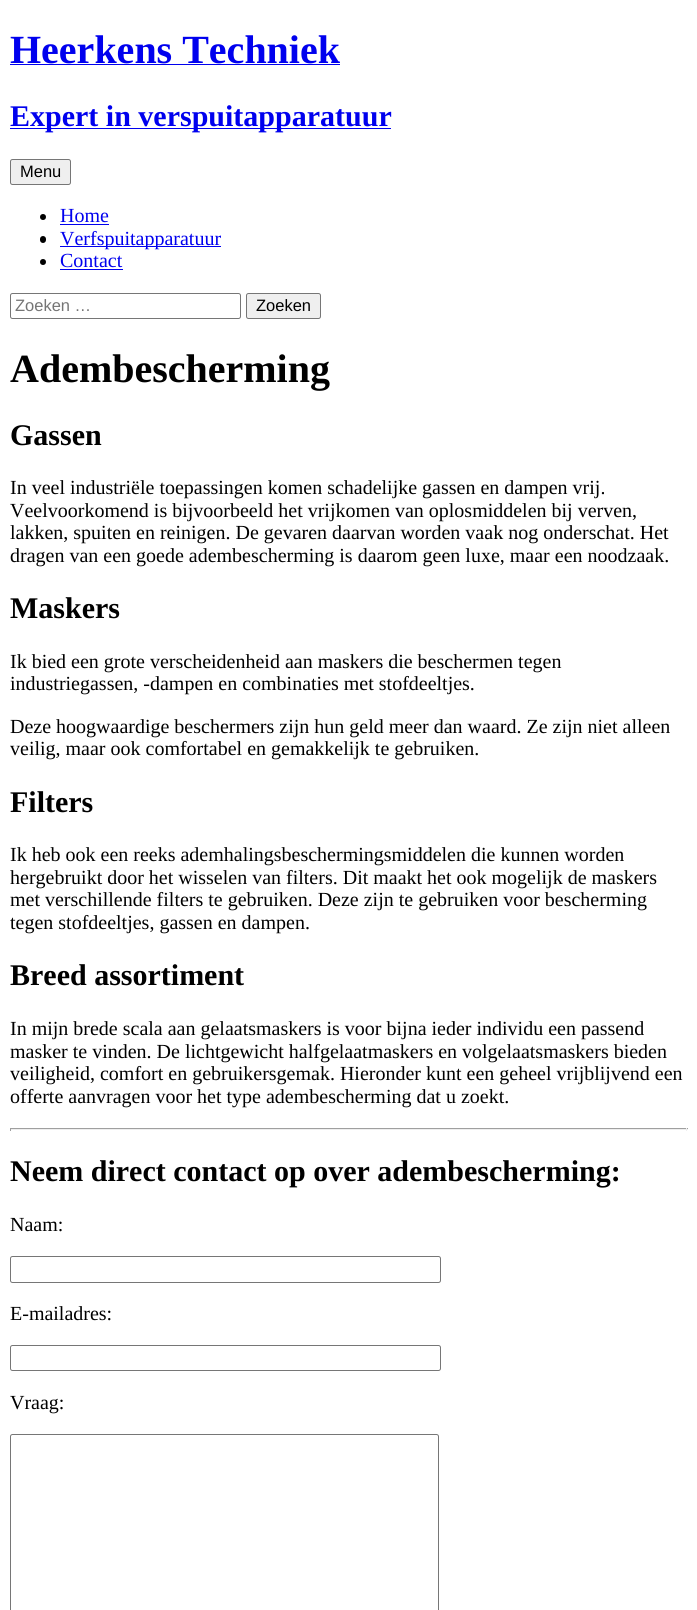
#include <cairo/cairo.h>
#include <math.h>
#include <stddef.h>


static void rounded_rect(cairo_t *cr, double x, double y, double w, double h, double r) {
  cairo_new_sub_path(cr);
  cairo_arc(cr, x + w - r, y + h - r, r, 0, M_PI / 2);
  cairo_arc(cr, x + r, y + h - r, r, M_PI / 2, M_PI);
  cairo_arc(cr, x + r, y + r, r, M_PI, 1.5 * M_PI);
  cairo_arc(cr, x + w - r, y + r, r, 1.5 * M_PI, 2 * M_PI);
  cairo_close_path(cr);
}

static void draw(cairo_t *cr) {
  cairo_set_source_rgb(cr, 1, 1, 1);
  cairo_paint(cr);
  cairo_set_source_rgb(cr, 0, 0, 238 / 255.0);
  cairo_rectangle(cr, 10, 64, 330, 1);
  cairo_fill(cr);
  cairo_rectangle(cr, 10, 128, 381, 1);
  cairo_fill(cr);
  cairo_set_source_rgb(cr, 239 / 255.0, 239 / 255.0, 239 / 255.0);
  rounded_rect(cr, 10.5, 159.5, 60, 25, 2);
  cairo_fill_preserve(cr);
  cairo_set_source_rgb(cr, 118 / 255.0, 118 / 255.0, 118 / 255.0);
  cairo_set_line_width(cr, 1);
  cairo_stroke(cr);
  cairo_set_source_rgb(cr, 0, 0, 0);
  cairo_arc(cr, 43, 217, 3, 0, 2 * M_PI);
  cairo_fill(cr);
  cairo_set_source_rgb(cr, 0, 0, 238 / 255.0);
  cairo_rectangle(cr, 60, 224, 49, 1);
  cairo_fill(cr);
  cairo_set_source_rgb(cr, 0, 0, 0);
  rounded_rect(cr, 40, 236, 6, 7, 3);
  cairo_fill(cr);
  cairo_set_source_rgb(cr, 0, 0, 238 / 255.0);
  cairo_rectangle(cr, 60, 246, 161, 1);
  cairo_fill(cr);
  cairo_set_source_rgb(cr, 0, 0, 0);
  cairo_arc(cr, 43, 262, 3, 0, 2 * M_PI);
  cairo_fill(cr);
  cairo_set_source_rgb(cr, 0, 0, 238 / 255.0);
  cairo_rectangle(cr, 60, 269, 63, 1);
  cairo_fill(cr);
  rounded_rect(cr, 10.5, 293.5, 230, 25, 2);
  cairo_set_source_rgb(cr, 118 / 255.0, 118 / 255.0, 118 / 255.0);
  cairo_stroke(cr);
  cairo_set_source_rgb(cr, 239 / 255.0, 239 / 255.0, 239 / 255.0);
  rounded_rect(cr, 246.5, 293.5, 74, 25, 2);
  cairo_fill_preserve(cr);
  cairo_set_source_rgb(cr, 118 / 255.0, 118 / 255.0, 118 / 255.0);
  cairo_stroke(cr);
  cairo_set_source_rgb(cr, 159 / 255.0, 159 / 255.0, 159 / 255.0);
  cairo_rectangle(cr, 10, 1128, 678, 1);
  cairo_fill(cr);
  cairo_set_source_rgb(cr, 238 / 255.0, 238 / 255.0, 238 / 255.0);
  cairo_rectangle(cr, 686, 1128, 1, 3);
  cairo_fill(cr);
  cairo_rectangle(cr, 10, 1129, 678, 1);
  cairo_fill(cr);
  cairo_set_source_rgb(cr, 159 / 255.0, 159 / 255.0, 159 / 255.0);
  cairo_rectangle(cr, 10, 1128, 1, 3);
  cairo_fill(cr);
  rounded_rect(cr, 10.5, 1256.5, 430, 26, 2);
  cairo_set_source_rgb(cr, 118 / 255.0, 118 / 255.0, 118 / 255.0);
  cairo_stroke(cr);
  rounded_rect(cr, 10.5, 1345.5, 430, 25, 2);
  cairo_stroke(cr);
  rounded_rect(cr, 10.5, 1434.5, 428, 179, 2);
  cairo_stroke(cr);
  cairo_select_font_face(cr, "Liberation Serif", CAIRO_FONT_SLANT_NORMAL, CAIRO_FONT_WEIGHT_BOLD);
  cairo_set_font_size(cr, 40);
  cairo_set_source_rgb(cr, 0, 0, 238 / 255.0);
  cairo_move_to(cr, 10, 63);
  cairo_show_text(cr, "Heerkens Techniek");
  cairo_set_font_size(cr, 30);
  cairo_move_to(cr, 10, 126);
  cairo_show_text(cr, "Expert in verspuitapparatuur");
  cairo_select_font_face(cr, "Liberation Sans", CAIRO_FONT_SLANT_NORMAL, CAIRO_FONT_WEIGHT_NORMAL);
  cairo_set_font_size(cr, 16.5);
  cairo_set_source_rgb(cr, 0, 0, 0);
  cairo_move_to(cr, 20, 177);
  cairo_show_text(cr, "Menu");
  cairo_select_font_face(cr, "Liberation Serif", CAIRO_FONT_SLANT_NORMAL, CAIRO_FONT_WEIGHT_NORMAL);
  cairo_set_font_size(cr, 20);
  cairo_set_source_rgb(cr, 0, 0, 238 / 255.0);
  cairo_move_to(cr, 60, 222);
  cairo_show_text(cr, "Home");
  cairo_move_to(cr, 60, 245);
  cairo_show_text(cr, "Verfspuitapparatuur");
  cairo_move_to(cr, 60, 267);
  cairo_show_text(cr, "Contact");
  cairo_select_font_face(cr, "Liberation Sans", CAIRO_FONT_SLANT_NORMAL, CAIRO_FONT_WEIGHT_NORMAL);
  cairo_set_font_size(cr, 16.5);
  cairo_set_source_rgb(cr, 117 / 255.0, 117 / 255.0, 117 / 255.0);
  cairo_move_to(cr, 15, 311);
  cairo_show_text(cr, "Zoeken …");
  cairo_set_source_rgb(cr, 0, 0, 0);
  cairo_move_to(cr, 256, 311);
  cairo_show_text(cr, "Zoeken");
  cairo_select_font_face(cr, "Liberation Serif", CAIRO_FONT_SLANT_NORMAL, CAIRO_FONT_WEIGHT_BOLD);
  cairo_set_font_size(cr, 40);
  cairo_move_to(cr, 10, 382);
  cairo_show_text(cr, "Adembescherming");
  cairo_set_font_size(cr, 30);
  cairo_move_to(cr, 10, 445);
  cairo_show_text(cr, "Gassen");
  cairo_select_font_face(cr, "Liberation Serif", CAIRO_FONT_SLANT_NORMAL, CAIRO_FONT_WEIGHT_NORMAL);
  cairo_set_font_size(cr, 20);
  cairo_move_to(cr, 10, 494);
  cairo_show_text(cr, "In veel industriële toepassingen komen schadelijke gassen en dampen vrij.");
  cairo_move_to(cr, 10, 517);
  cairo_show_text(cr, "Veelvoorkomend is bijvoorbeeld het vrijkomen van oplosmiddelen bij verven,");
  cairo_move_to(cr, 10, 539);
  cairo_show_text(cr, "lakken, spuiten en reinigen. De gevaren daarvan worden vaak nog onderschat. Het");
  cairo_move_to(cr, 10, 562);
  cairo_show_text(cr, "dragen van een goede adembescherming is daarom geen luxe, maar een noodzaak.");
  cairo_select_font_face(cr, "Liberation Serif", CAIRO_FONT_SLANT_NORMAL, CAIRO_FONT_WEIGHT_BOLD);
  cairo_set_font_size(cr, 30);
  cairo_move_to(cr, 10, 618);
  cairo_show_text(cr, "Maskers");
  cairo_select_font_face(cr, "Liberation Serif", CAIRO_FONT_SLANT_NORMAL, CAIRO_FONT_WEIGHT_NORMAL);
  cairo_set_font_size(cr, 20);
  cairo_move_to(cr, 10, 668);
  cairo_show_text(cr, "Ik bied een grote verscheidenheid aan maskers die beschermen tegen");
  cairo_move_to(cr, 10, 690);
  cairo_show_text(cr, "industriegassen, -dampen en combinaties met stofdeeltjes.");
  cairo_move_to(cr, 10, 733);
  cairo_show_text(cr, "Deze hoogwaardige beschermers zijn hun geld meer dan waard. Ze zijn niet alleen");
  cairo_move_to(cr, 10, 755);
  cairo_show_text(cr, "veilig, maar ook comfortabel en gemakkelijk te gebruiken.");
  cairo_select_font_face(cr, "Liberation Serif", CAIRO_FONT_SLANT_NORMAL, CAIRO_FONT_WEIGHT_BOLD);
  cairo_set_font_size(cr, 30);
  cairo_move_to(cr, 10, 812);
  cairo_show_text(cr, "Filters");
  cairo_select_font_face(cr, "Liberation Serif", CAIRO_FONT_SLANT_NORMAL, CAIRO_FONT_WEIGHT_NORMAL);
  cairo_set_font_size(cr, 20);
  cairo_move_to(cr, 10, 861);
  cairo_show_text(cr, "Ik heb ook een reeks ademhalingsbeschermingsmiddelen die kunnen worden");
  cairo_move_to(cr, 10, 884);
  cairo_show_text(cr, "hergebruikt door het wisselen van filters. Dit maakt het ook mogelijk de maskers");
  cairo_move_to(cr, 10, 906);
  cairo_show_text(cr, "met verschillende filters te gebruiken. Deze zijn te gebruiken voor bescherming");
  cairo_move_to(cr, 10, 929);
  cairo_show_text(cr, "tegen stofdeeltjes, gassen en dampen.");
  cairo_select_font_face(cr, "Liberation Serif", CAIRO_FONT_SLANT_NORMAL, CAIRO_FONT_WEIGHT_BOLD);
  cairo_set_font_size(cr, 30);
  cairo_move_to(cr, 10, 985);
  cairo_show_text(cr, "Breed assortiment");
  cairo_select_font_face(cr, "Liberation Serif", CAIRO_FONT_SLANT_NORMAL, CAIRO_FONT_WEIGHT_NORMAL);
  cairo_set_font_size(cr, 20);
  cairo_move_to(cr, 10, 1035);
  cairo_show_text(cr, "In mijn brede scala aan gelaatsmaskers is voor bijna ieder individu een passend");
  cairo_move_to(cr, 10, 1058);
  cairo_show_text(cr, "masker te vinden. De lichtgewicht halfgelaatmaskers en volgelaatsmaskers bieden");
  cairo_move_to(cr, 10, 1080);
  cairo_show_text(cr, "veiligheid, comfort en gebruikersgemak. Hieronder kunt een geheel vrijblijvend een");
  cairo_move_to(cr, 10, 1103);
  cairo_show_text(cr, "offerte aanvragen voor het type adembescherming dat u zoekt.");
  cairo_select_font_face(cr, "Liberation Serif", CAIRO_FONT_SLANT_NORMAL, CAIRO_FONT_WEIGHT_BOLD);
  cairo_set_font_size(cr, 30);
  cairo_move_to(cr, 10, 1181);
  cairo_show_text(cr, "Neem direct contact op over adembescherming:");
  cairo_select_font_face(cr, "Liberation Serif", CAIRO_FONT_SLANT_NORMAL, CAIRO_FONT_WEIGHT_NORMAL);
  cairo_set_font_size(cr, 20);
  cairo_move_to(cr, 10, 1231);
  cairo_show_text(cr, "Naam:");
  cairo_move_to(cr, 10, 1320);
  cairo_show_text(cr, "E-mailadres:");
  cairo_move_to(cr, 10, 1409);
  cairo_show_text(cr, "Vraag:");
}

int main(void) {
  cairo_surface_t *surface = cairo_image_surface_create(CAIRO_FORMAT_RGB24, 697, 1610);
  cairo_t *cr = cairo_create(surface);
  cairo_font_options_t *options = cairo_font_options_create();
  cairo_font_options_set_hint_metrics(options, CAIRO_HINT_METRICS_OFF);
  cairo_font_options_set_hint_style(options, CAIRO_HINT_STYLE_NONE);
  cairo_set_font_options(cr, options);
  cairo_set_miter_limit(cr, 4);
  draw(cr);
  cairo_surface_write_to_png(surface, "out.png");
  cairo_font_options_destroy(options);
  cairo_destroy(cr);
  cairo_surface_destroy(surface);
  return 0;
}
